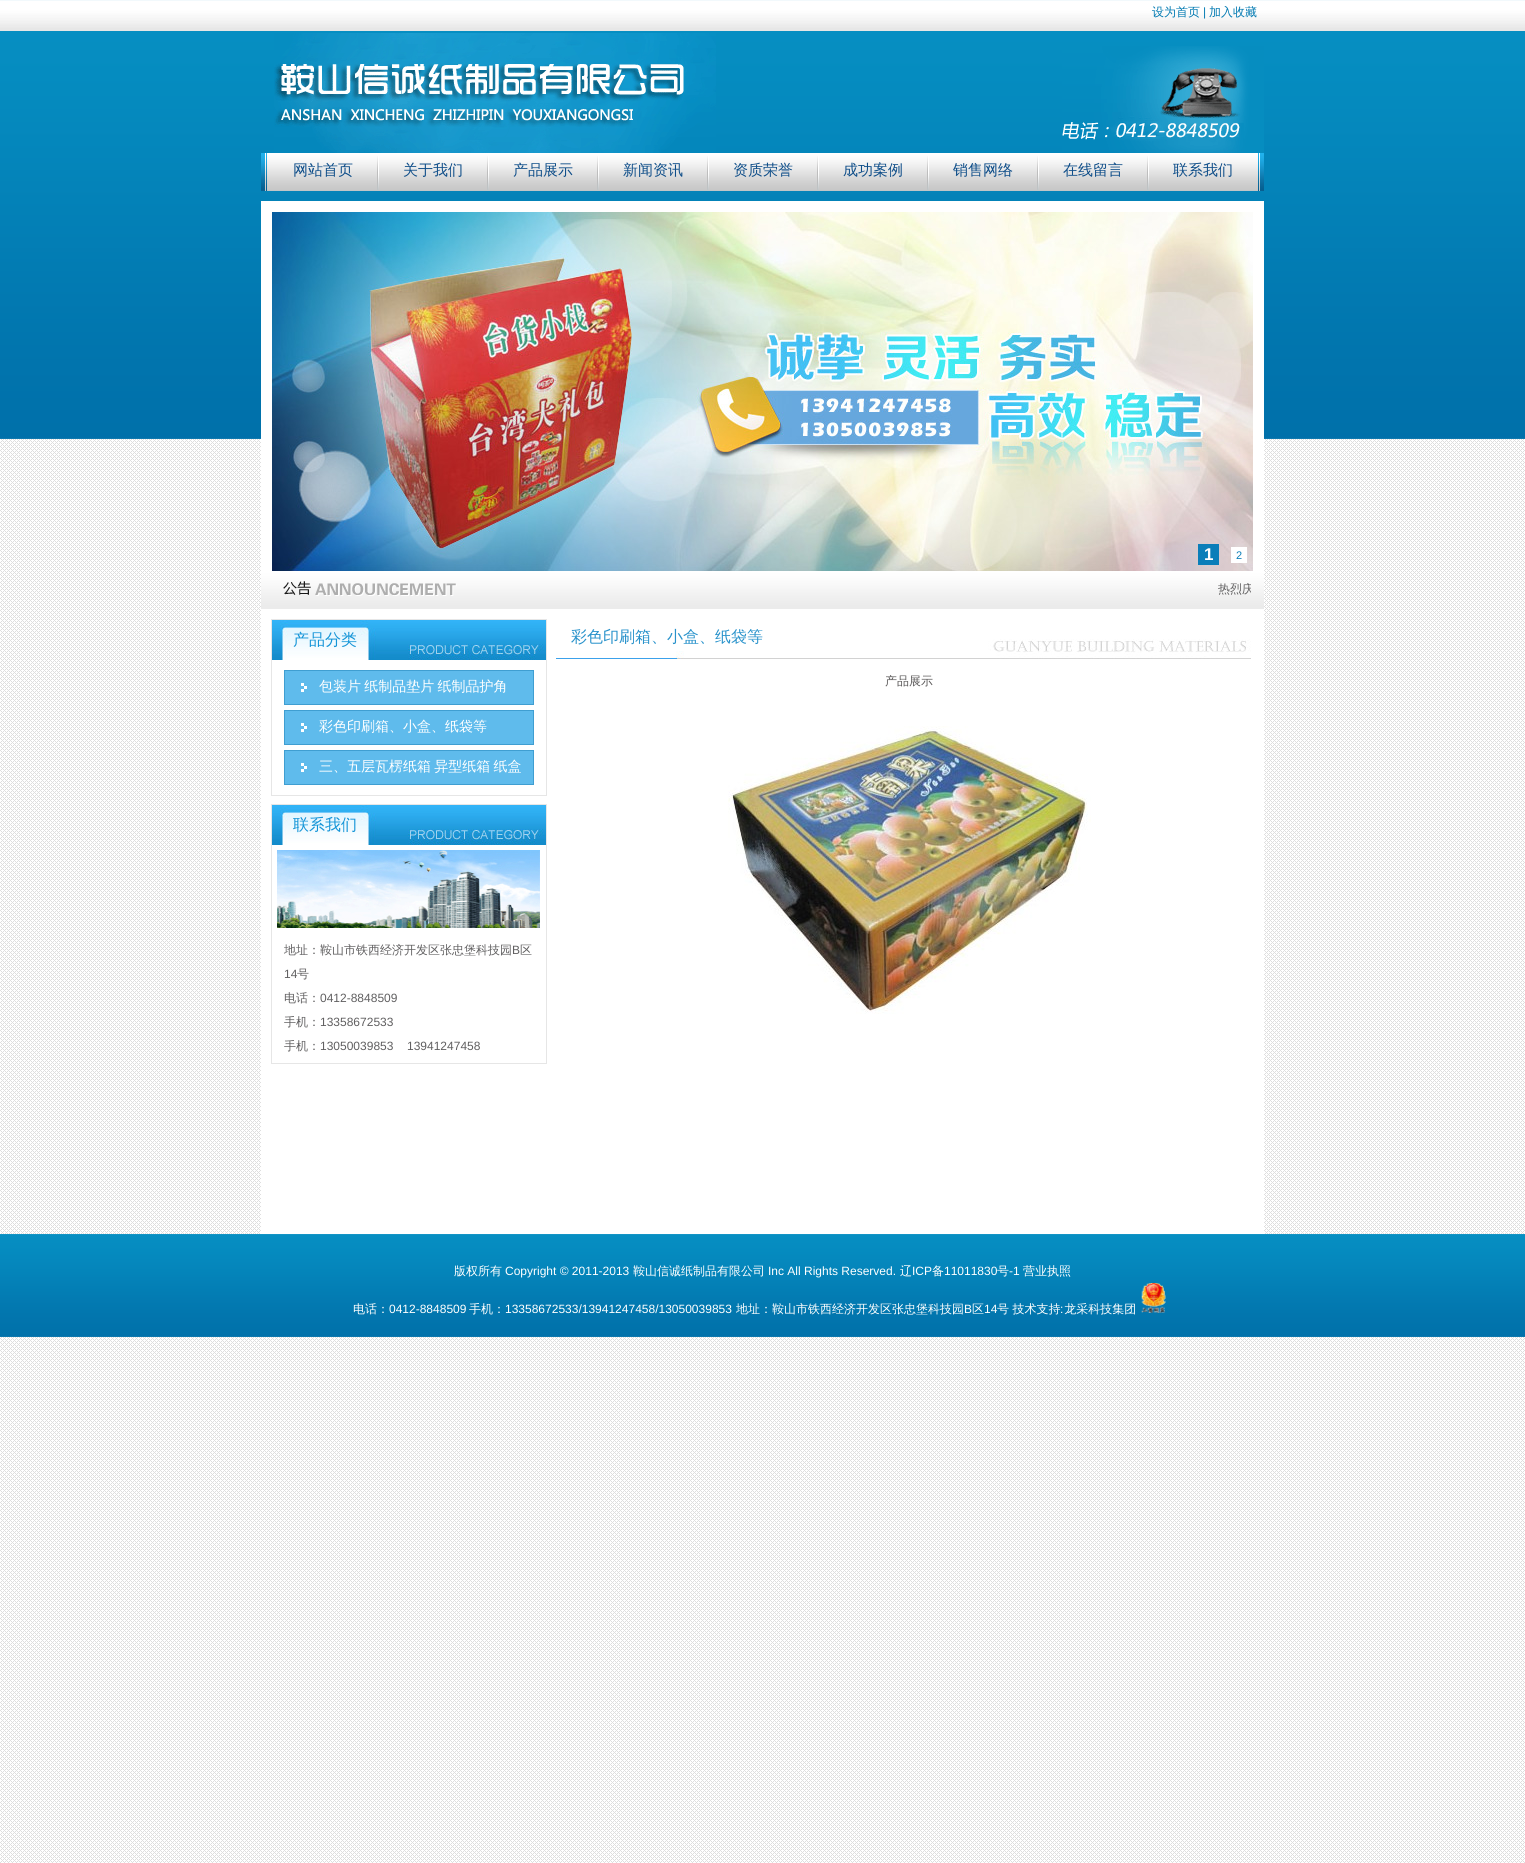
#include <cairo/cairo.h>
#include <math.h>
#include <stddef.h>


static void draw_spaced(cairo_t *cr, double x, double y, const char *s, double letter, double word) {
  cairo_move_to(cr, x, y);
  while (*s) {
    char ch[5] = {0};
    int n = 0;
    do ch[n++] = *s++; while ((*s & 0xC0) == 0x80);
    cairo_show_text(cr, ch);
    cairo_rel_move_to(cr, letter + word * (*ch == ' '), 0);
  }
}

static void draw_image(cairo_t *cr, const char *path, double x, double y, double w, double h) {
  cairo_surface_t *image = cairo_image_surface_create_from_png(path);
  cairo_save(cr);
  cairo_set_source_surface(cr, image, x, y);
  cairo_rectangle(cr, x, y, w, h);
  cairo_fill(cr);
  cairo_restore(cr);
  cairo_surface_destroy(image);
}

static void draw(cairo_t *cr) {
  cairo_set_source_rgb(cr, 1, 1, 1);
  cairo_paint(cr);
  draw_image(cr, "images/1.png", 0, 439, 1525, 1424);
  draw_image(cr, "images/2.png", 0, 0, 1525, 439);
  draw_image(cr, "images/3.png", 1062, 46, 202, 107);
  draw_image(cr, "images/4.png", 274, 33, 442, 120);
  draw_image(cr, "images/5.png", 267, 153, 991, 38);
  draw_image(cr, "images/6.png", 261, 153, 6, 38);
  draw_image(cr, "images/7.png", 377, 156, 2, 34);
  draw_image(cr, "images/7.png", 487, 156, 2, 34);
  draw_image(cr, "images/7.png", 597, 156, 2, 34);
  draw_image(cr, "images/7.png", 707, 156, 2, 34);
  draw_image(cr, "images/7.png", 817, 156, 2, 34);
  draw_image(cr, "images/7.png", 927, 156, 2, 34);
  draw_image(cr, "images/7.png", 1037, 156, 2, 34);
  draw_image(cr, "images/7.png", 1147, 156, 2, 34);
  draw_image(cr, "images/8.png", 1258, 153, 6, 38);
  cairo_set_source_rgb(cr, 1, 1, 1);
  cairo_rectangle(cr, 261, 201, 1003, 370);
  cairo_fill(cr);
  draw_image(cr, "images/9.png", 272, 212, 981, 359);
  cairo_set_source_rgb(cr, 10 / 255.0, 126 / 255.0, 185 / 255.0);
  cairo_rectangle(cr, 1198, 544, 21, 21);
  cairo_fill(cr);
  cairo_set_source_rgb(cr, 1, 1, 1);
  cairo_rectangle(cr, 1231, 547, 16, 16);
  cairo_fill(cr);
  draw_image(cr, "images/10.png", 261, 571, 1003, 38);
  cairo_rectangle(cr, 261, 609, 1003, 625);
  cairo_fill(cr);
  cairo_rectangle(cr, 271.5, 619.5, 275, 176);
  cairo_set_source_rgb(cr, 230 / 255.0, 230 / 255.0, 230 / 255.0);
  cairo_set_line_width(cr, 1);
  cairo_stroke(cr);
  draw_image(cr, "images/11.png", 272, 620, 274, 40);
  draw_image(cr, "images/12.png", 284, 670, 250, 35);
  draw_image(cr, "images/12.png", 284, 710, 250, 35);
  draw_image(cr, "images/12.png", 284, 750, 250, 35);
  cairo_rectangle(cr, 271.5, 804.5, 275, 259);
  cairo_stroke(cr);
  draw_image(cr, "images/11.png", 272, 805, 274, 40);
  draw_image(cr, "images/13.png", 277, 850, 263, 78);
  draw_image(cr, "images/14.png", 556, 639, 695, 20);
  draw_image(cr, "images/15.png", 728, 726, 363, 288);
  draw_image(cr, "images/16.png", 0, 1234, 1525, 103);
  draw_image(cr, "images/17.png", 1141, 1283, 25, 30);
  cairo_select_font_face(cr, "WenQuanYi Zen Hei Medium", CAIRO_FONT_SLANT_NORMAL, CAIRO_FONT_WEIGHT_NORMAL);
  cairo_set_font_size(cr, 12);
  cairo_set_source_rgb(cr, 2 / 255.0, 122 / 255.0, 178 / 255.0);
  cairo_move_to(cr, 1152, 16);
  cairo_show_text(cr, "设为首页");
  cairo_select_font_face(cr, "Liberation Sans", CAIRO_FONT_SLANT_NORMAL, CAIRO_FONT_WEIGHT_NORMAL);
  cairo_move_to(cr, 1203, 16);
  cairo_show_text(cr, "|");
  cairo_select_font_face(cr, "WenQuanYi Zen Hei Medium", CAIRO_FONT_SLANT_NORMAL, CAIRO_FONT_WEIGHT_NORMAL);
  cairo_move_to(cr, 1209, 16);
  cairo_show_text(cr, "加入收藏");
  cairo_set_font_size(cr, 15);
  cairo_set_source_rgb(cr, 15 / 255.0, 78 / 255.0, 137 / 255.0);
  cairo_move_to(cr, 293, 175);
  cairo_show_text(cr, "网站首页");
  cairo_move_to(cr, 403, 175);
  cairo_show_text(cr, "关于我们");
  cairo_move_to(cr, 513, 175);
  cairo_show_text(cr, "产品展示");
  cairo_move_to(cr, 623, 175);
  cairo_show_text(cr, "新闻资讯");
  cairo_move_to(cr, 733, 175);
  cairo_show_text(cr, "资质荣誉");
  cairo_move_to(cr, 843, 175);
  cairo_show_text(cr, "成功案例");
  cairo_move_to(cr, 953, 175);
  cairo_show_text(cr, "销售网络");
  cairo_move_to(cr, 1063, 175);
  cairo_show_text(cr, "在线留言");
  cairo_move_to(cr, 1173, 175);
  cairo_show_text(cr, "联系我们");
  cairo_select_font_face(cr, "Liberation Sans", CAIRO_FONT_SLANT_NORMAL, CAIRO_FONT_WEIGHT_BOLD);
  cairo_set_font_size(cr, 17);
  cairo_set_source_rgb(cr, 1, 1, 1);
  cairo_move_to(cr, 1204, 560);
  cairo_show_text(cr, "1");
  cairo_select_font_face(cr, "Liberation Sans", CAIRO_FONT_SLANT_NORMAL, CAIRO_FONT_WEIGHT_NORMAL);
  cairo_set_font_size(cr, 11);
  cairo_set_source_rgb(cr, 10 / 255.0, 126 / 255.0, 185 / 255.0);
  cairo_move_to(cr, 1236, 559);
  cairo_show_text(cr, "2");
  cairo_save(cr);
  cairo_rectangle(cr, 461, 571, 790, 36);
  cairo_clip(cr);
  cairo_select_font_face(cr, "WenQuanYi Zen Hei Medium", CAIRO_FONT_SLANT_NORMAL, CAIRO_FONT_WEIGHT_NORMAL);
  cairo_set_font_size(cr, 12);
  cairo_set_source_rgb(cr, 96 / 255.0, 95 / 255.0, 96 / 255.0);
  cairo_move_to(cr, 1218, 593);
  cairo_show_text(cr, "热烈庆");
  cairo_restore(cr);
  cairo_select_font_face(cr, "WenQuanYi Zen Hei Medium", CAIRO_FONT_SLANT_NORMAL, CAIRO_FONT_WEIGHT_NORMAL);
  cairo_set_font_size(cr, 16);
  cairo_set_source_rgb(cr, 19 / 255.0, 148 / 255.0, 215 / 255.0);
  cairo_move_to(cr, 293, 645);
  cairo_show_text(cr, "产品分类");
  cairo_set_font_size(cr, 14);
  cairo_set_source_rgb(cr, 1, 1, 1);
  draw_spaced(cr, 319, 691, "包装片 纸制品垫片 纸制品护角", 0, -1);
  cairo_move_to(cr, 319, 731);
  cairo_show_text(cr, "彩色印刷箱、小盒、纸袋等");
  draw_spaced(cr, 319, 771, "三、五层瓦楞纸箱 异型纸箱 纸盒", 0, -1);
  cairo_set_font_size(cr, 16);
  cairo_set_source_rgb(cr, 19 / 255.0, 148 / 255.0, 215 / 255.0);
  cairo_move_to(cr, 293, 830);
  cairo_show_text(cr, "联系我们");
  cairo_set_font_size(cr, 12);
  cairo_set_source_rgb(cr, 96 / 255.0, 95 / 255.0, 96 / 255.0);
  cairo_move_to(cr, 284, 954);
  cairo_show_text(cr, "地址：鞍山市铁西经济开发区张忠堡科技园");
  cairo_select_font_face(cr, "Liberation Sans", CAIRO_FONT_SLANT_NORMAL, CAIRO_FONT_WEIGHT_NORMAL);
  cairo_move_to(cr, 512, 954);
  cairo_show_text(cr, "B");
  cairo_select_font_face(cr, "WenQuanYi Zen Hei Medium", CAIRO_FONT_SLANT_NORMAL, CAIRO_FONT_WEIGHT_NORMAL);
  cairo_move_to(cr, 520, 954);
  cairo_show_text(cr, "区");
  cairo_select_font_face(cr, "Liberation Sans", CAIRO_FONT_SLANT_NORMAL, CAIRO_FONT_WEIGHT_NORMAL);
  cairo_move_to(cr, 284, 978);
  cairo_show_text(cr, "14");
  cairo_select_font_face(cr, "WenQuanYi Zen Hei Medium", CAIRO_FONT_SLANT_NORMAL, CAIRO_FONT_WEIGHT_NORMAL);
  cairo_move_to(cr, 297, 978);
  cairo_show_text(cr, "号");
  cairo_move_to(cr, 284, 1002);
  cairo_show_text(cr, "电话：");
  cairo_select_font_face(cr, "Liberation Sans", CAIRO_FONT_SLANT_NORMAL, CAIRO_FONT_WEIGHT_NORMAL);
  cairo_move_to(cr, 320, 1002);
  cairo_show_text(cr, "0412-8848509");
  cairo_select_font_face(cr, "WenQuanYi Zen Hei Medium", CAIRO_FONT_SLANT_NORMAL, CAIRO_FONT_WEIGHT_NORMAL);
  cairo_move_to(cr, 284, 1026);
  cairo_show_text(cr, "手机：");
  cairo_select_font_face(cr, "Liberation Sans", CAIRO_FONT_SLANT_NORMAL, CAIRO_FONT_WEIGHT_NORMAL);
  cairo_move_to(cr, 320, 1026);
  cairo_show_text(cr, "13358672533");
  cairo_select_font_face(cr, "WenQuanYi Zen Hei Medium", CAIRO_FONT_SLANT_NORMAL, CAIRO_FONT_WEIGHT_NORMAL);
  cairo_move_to(cr, 284, 1050);
  cairo_show_text(cr, "手机：");
  cairo_select_font_face(cr, "Liberation Sans", CAIRO_FONT_SLANT_NORMAL, CAIRO_FONT_WEIGHT_NORMAL);
  cairo_move_to(cr, 320, 1050);
  cairo_show_text(cr, "13050039853");
  cairo_move_to(cr, 407, 1050);
  cairo_show_text(cr, "13941247458");
  cairo_select_font_face(cr, "WenQuanYi Zen Hei Medium", CAIRO_FONT_SLANT_NORMAL, CAIRO_FONT_WEIGHT_NORMAL);
  cairo_set_font_size(cr, 16);
  cairo_set_source_rgb(cr, 40 / 255.0, 146 / 255.0, 203 / 255.0);
  cairo_move_to(cr, 571, 642);
  cairo_show_text(cr, "彩色印刷箱、小盒、纸袋等");
  cairo_set_font_size(cr, 12);
  cairo_set_source_rgb(cr, 88 / 255.0, 86 / 255.0, 86 / 255.0);
  cairo_move_to(cr, 885, 685);
  cairo_show_text(cr, "产品展示");
  cairo_set_source_rgb(cr, 1, 1, 1);
  cairo_move_to(cr, 454, 1275);
  cairo_show_text(cr, "版权所有");
  cairo_select_font_face(cr, "Liberation Sans", CAIRO_FONT_SLANT_NORMAL, CAIRO_FONT_WEIGHT_NORMAL);
  cairo_move_to(cr, 505, 1275);
  cairo_show_text(cr, "Copyright © 2011-2013");
  cairo_select_font_face(cr, "WenQuanYi Zen Hei Medium", CAIRO_FONT_SLANT_NORMAL, CAIRO_FONT_WEIGHT_NORMAL);
  cairo_move_to(cr, 633, 1275);
  cairo_show_text(cr, "鞍山信诚纸制品有限公司");
  cairo_select_font_face(cr, "Liberation Sans", CAIRO_FONT_SLANT_NORMAL, CAIRO_FONT_WEIGHT_NORMAL);
  cairo_move_to(cr, 768, 1275);
  cairo_show_text(cr, "Inc All Rights Reserved.");
  cairo_select_font_face(cr, "WenQuanYi Zen Hei Medium", CAIRO_FONT_SLANT_NORMAL, CAIRO_FONT_WEIGHT_NORMAL);
  cairo_move_to(cr, 900, 1275);
  cairo_show_text(cr, "辽");
  cairo_select_font_face(cr, "Liberation Sans", CAIRO_FONT_SLANT_NORMAL, CAIRO_FONT_WEIGHT_NORMAL);
  cairo_move_to(cr, 912, 1275);
  cairo_show_text(cr, "ICP");
  cairo_select_font_face(cr, "WenQuanYi Zen Hei Medium", CAIRO_FONT_SLANT_NORMAL, CAIRO_FONT_WEIGHT_NORMAL);
  cairo_move_to(cr, 932, 1275);
  cairo_show_text(cr, "备");
  cairo_select_font_face(cr, "Liberation Sans", CAIRO_FONT_SLANT_NORMAL, CAIRO_FONT_WEIGHT_NORMAL);
  cairo_move_to(cr, 944, 1275);
  cairo_show_text(cr, "11011830");
  cairo_select_font_face(cr, "WenQuanYi Zen Hei Medium", CAIRO_FONT_SLANT_NORMAL, CAIRO_FONT_WEIGHT_NORMAL);
  cairo_move_to(cr, 997, 1275);
  cairo_show_text(cr, "号");
  cairo_select_font_face(cr, "Liberation Sans", CAIRO_FONT_SLANT_NORMAL, CAIRO_FONT_WEIGHT_NORMAL);
  cairo_move_to(cr, 1009, 1275);
  cairo_show_text(cr, "-1");
  cairo_select_font_face(cr, "WenQuanYi Zen Hei Medium", CAIRO_FONT_SLANT_NORMAL, CAIRO_FONT_WEIGHT_NORMAL);
  cairo_move_to(cr, 1023, 1275);
  cairo_show_text(cr, "营业执照");
  cairo_move_to(cr, 353, 1313);
  cairo_show_text(cr, "电话：");
  cairo_select_font_face(cr, "Liberation Sans", CAIRO_FONT_SLANT_NORMAL, CAIRO_FONT_WEIGHT_NORMAL);
  cairo_move_to(cr, 389, 1313);
  cairo_show_text(cr, "0412-8848509");
  cairo_select_font_face(cr, "WenQuanYi Zen Hei Medium", CAIRO_FONT_SLANT_NORMAL, CAIRO_FONT_WEIGHT_NORMAL);
  cairo_move_to(cr, 469, 1313);
  cairo_show_text(cr, "手机：");
  cairo_select_font_face(cr, "Liberation Sans", CAIRO_FONT_SLANT_NORMAL, CAIRO_FONT_WEIGHT_NORMAL);
  cairo_move_to(cr, 505, 1313);
  cairo_show_text(cr, "13358672533/13941247458/13050039853");
  cairo_select_font_face(cr, "WenQuanYi Zen Hei Medium", CAIRO_FONT_SLANT_NORMAL, CAIRO_FONT_WEIGHT_NORMAL);
  cairo_move_to(cr, 736, 1313);
  cairo_show_text(cr, "地址：鞍山市铁西经济开发区张忠堡科技园");
  cairo_select_font_face(cr, "Liberation Sans", CAIRO_FONT_SLANT_NORMAL, CAIRO_FONT_WEIGHT_NORMAL);
  cairo_move_to(cr, 964, 1313);
  cairo_show_text(cr, "B");
  cairo_select_font_face(cr, "WenQuanYi Zen Hei Medium", CAIRO_FONT_SLANT_NORMAL, CAIRO_FONT_WEIGHT_NORMAL);
  cairo_move_to(cr, 972, 1313);
  cairo_show_text(cr, "区");
  cairo_select_font_face(cr, "Liberation Sans", CAIRO_FONT_SLANT_NORMAL, CAIRO_FONT_WEIGHT_NORMAL);
  cairo_move_to(cr, 984, 1313);
  cairo_show_text(cr, "14");
  cairo_select_font_face(cr, "WenQuanYi Zen Hei Medium", CAIRO_FONT_SLANT_NORMAL, CAIRO_FONT_WEIGHT_NORMAL);
  cairo_move_to(cr, 997, 1313);
  cairo_show_text(cr, "号 技术支持 龙采科技集团");
  cairo_select_font_face(cr, "Liberation Sans", CAIRO_FONT_SLANT_NORMAL, CAIRO_FONT_WEIGHT_NORMAL);
  cairo_move_to(cr, 1060, 1313);
  cairo_show_text(cr, ":");
}

int main(void) {
  cairo_surface_t *surface = cairo_image_surface_create(CAIRO_FORMAT_RGB24, 1525, 1863);
  cairo_t *cr = cairo_create(surface);
  cairo_font_options_t *options = cairo_font_options_create();
  cairo_font_options_set_hint_metrics(options, CAIRO_HINT_METRICS_OFF);
  cairo_font_options_set_hint_style(options, CAIRO_HINT_STYLE_NONE);
  cairo_set_font_options(cr, options);
  cairo_set_miter_limit(cr, 4);
  draw(cr);
  cairo_surface_write_to_png(surface, "out.png");
  cairo_font_options_destroy(options);
  cairo_destroy(cr);
  cairo_surface_destroy(surface);
  return 0;
}
